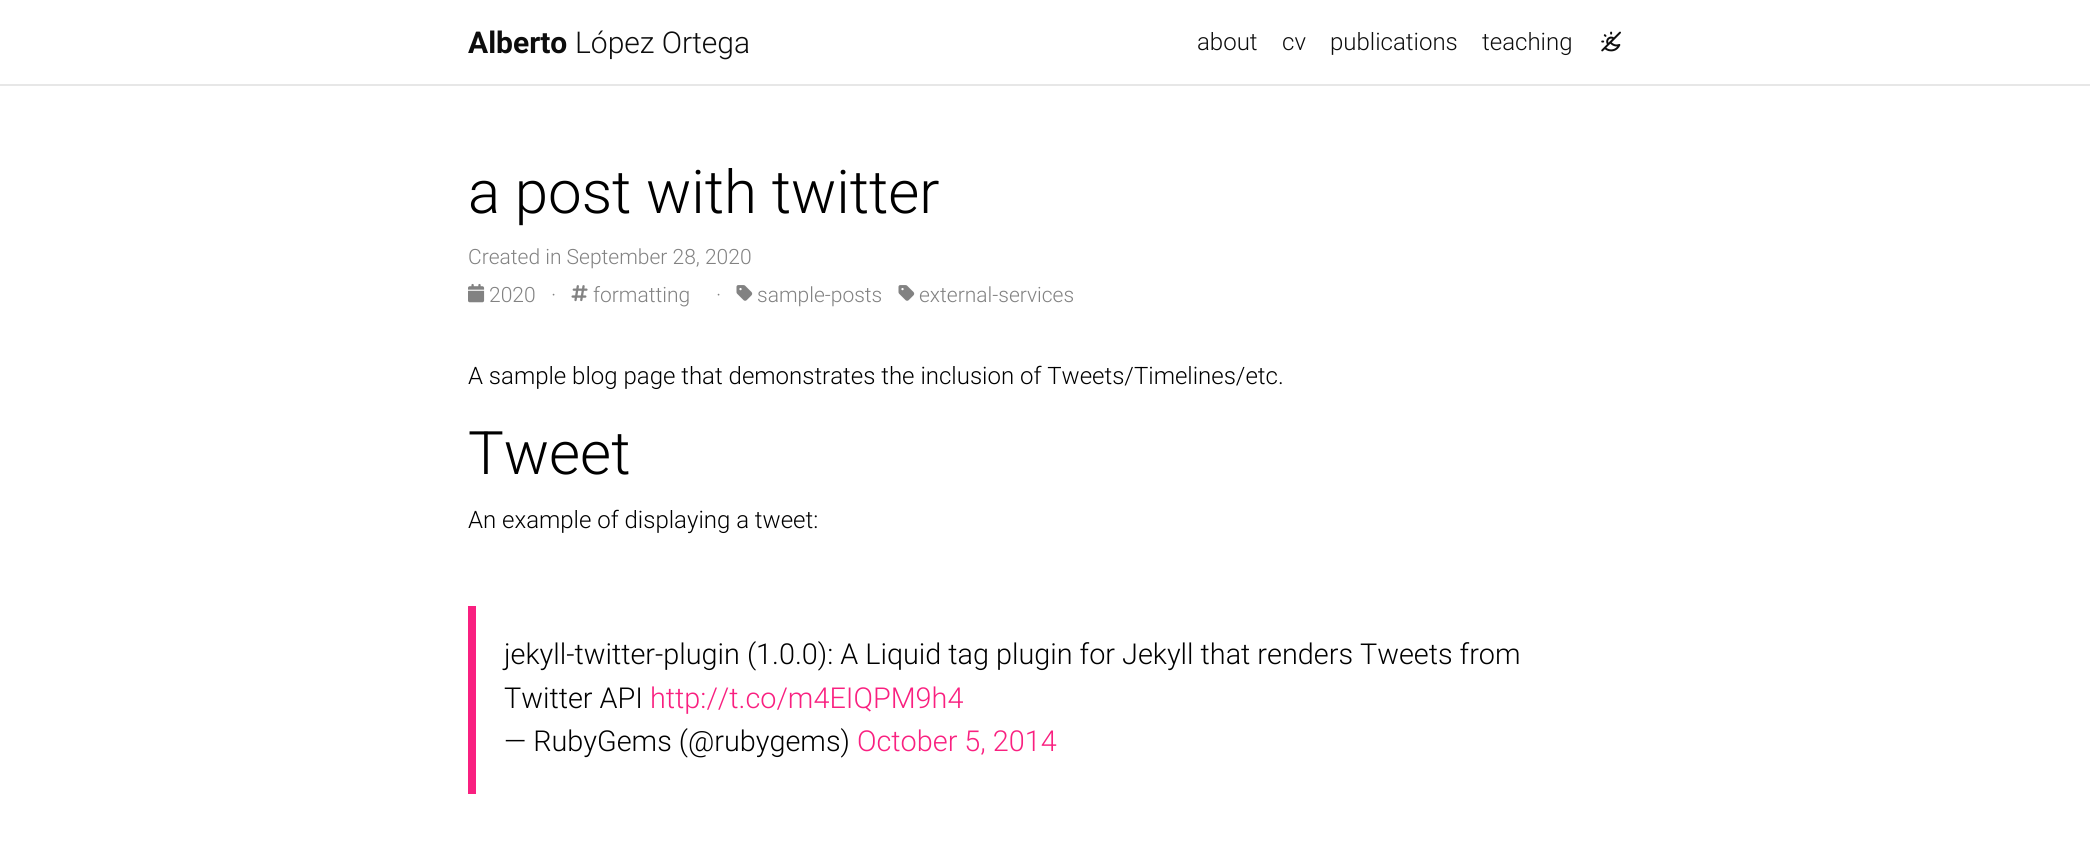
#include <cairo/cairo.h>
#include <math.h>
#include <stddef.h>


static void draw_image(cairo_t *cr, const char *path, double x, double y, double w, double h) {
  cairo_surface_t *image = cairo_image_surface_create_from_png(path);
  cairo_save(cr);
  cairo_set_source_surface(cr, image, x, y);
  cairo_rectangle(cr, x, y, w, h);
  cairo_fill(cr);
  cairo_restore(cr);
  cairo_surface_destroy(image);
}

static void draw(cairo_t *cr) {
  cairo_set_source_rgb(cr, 1, 1, 1);
  cairo_paint(cr);
  cairo_set_source_rgb(cr, 231 / 255.0, 231 / 255.0, 231 / 255.0);
  cairo_rectangle(cr, 0, 84, 2090, 2);
  cairo_fill(cr);
  draw_image(cr, "images/1.png", 1601, 31, 20, 21);
  draw_image(cr, "images/2.png", 468, 283, 17, 20);
  draw_image(cr, "images/3.png", 571, 285, 17, 17);
  draw_image(cr, "images/4.png", 736, 285, 17, 16);
  draw_image(cr, "images/4.png", 898, 285, 17, 16);
  cairo_set_source_rgb(cr, 249 / 255.0, 32 / 255.0, 128 / 255.0);
  cairo_rectangle(cr, 468, 606, 8, 188);
  cairo_fill(cr);
  cairo_select_font_face(cr, "Roboto", CAIRO_FONT_SLANT_NORMAL, CAIRO_FONT_WEIGHT_BOLD);
  cairo_set_font_size(cr, 30);
  cairo_set_source_rgb(cr, 13 / 255.0, 13 / 255.0, 13 / 255.0);
  cairo_move_to(cr, 468, 53);
  cairo_show_text(cr, "Alberto");
  cairo_select_font_face(cr, "Roboto Light", CAIRO_FONT_SLANT_NORMAL, CAIRO_FONT_WEIGHT_NORMAL);
  cairo_move_to(cr, 575, 53);
  cairo_show_text(cr, "López Ortega");
  cairo_set_font_size(cr, 24);
  cairo_move_to(cr, 1197, 50);
  cairo_show_text(cr, "about");
  cairo_move_to(cr, 1282, 50);
  cairo_show_text(cr, "cv");
  cairo_move_to(cr, 1330, 50);
  cairo_show_text(cr, "publications");
  cairo_move_to(cr, 1482, 50);
  cairo_show_text(cr, "teaching");
  cairo_set_font_size(cr, 60);
  cairo_set_source_rgb(cr, 0, 0, 0);
  cairo_move_to(cr, 468, 213);
  cairo_show_text(cr, "a post with twitter");
  cairo_set_font_size(cr, 21);
  cairo_set_source_rgb(cr, 130 / 255.0, 130 / 255.0, 130 / 255.0);
  cairo_move_to(cr, 468, 264);
  cairo_show_text(cr, "Created in September 28, 2020");
  cairo_move_to(cr, 489, 302);
  cairo_show_text(cr, "2020");
  cairo_move_to(cr, 551, 302);
  cairo_show_text(cr, "·");
  cairo_move_to(cr, 593, 302);
  cairo_show_text(cr, "formatting");
  cairo_move_to(cr, 716, 302);
  cairo_show_text(cr, "·");
  cairo_move_to(cr, 757, 302);
  cairo_show_text(cr, "sample-posts");
  cairo_move_to(cr, 919, 302);
  cairo_show_text(cr, "external-services");
  cairo_set_font_size(cr, 24);
  cairo_set_source_rgb(cr, 0, 0, 0);
  cairo_move_to(cr, 468, 384);
  cairo_show_text(cr, "A sample blog page that demonstrates the inclusion of Tweets/Timelines/etc.");
  cairo_set_font_size(cr, 60);
  cairo_move_to(cr, 468, 474);
  cairo_show_text(cr, "Tweet");
  cairo_set_font_size(cr, 24);
  cairo_move_to(cr, 468, 528);
  cairo_show_text(cr, "An example of displaying a tweet:");
  cairo_set_font_size(cr, 28.8);
  cairo_move_to(cr, 504, 664);
  cairo_show_text(cr, "jekyll-twitter-plugin (1.0.0): A Liquid tag plugin for Jekyll that renders Tweets from");
  cairo_move_to(cr, 504, 708);
  cairo_show_text(cr, "Twitter API");
  cairo_set_source_rgb(cr, 249 / 255.0, 32 / 255.0, 128 / 255.0);
  cairo_move_to(cr, 650, 708);
  cairo_show_text(cr, "http://t.co/m4EIQPM9h4");
  cairo_set_source_rgb(cr, 0, 0, 0);
  cairo_move_to(cr, 504, 751);
  cairo_show_text(cr, "— RubyGems (@rubygems)");
  cairo_set_source_rgb(cr, 249 / 255.0, 32 / 255.0, 128 / 255.0);
  cairo_move_to(cr, 857, 751);
  cairo_show_text(cr, "October 5, 2014");
}

int main(void) {
  cairo_surface_t *surface = cairo_image_surface_create(CAIRO_FORMAT_RGB24, 2090, 863);
  cairo_t *cr = cairo_create(surface);
  cairo_font_options_t *options = cairo_font_options_create();
  cairo_font_options_set_hint_metrics(options, CAIRO_HINT_METRICS_OFF);
  cairo_font_options_set_hint_style(options, CAIRO_HINT_STYLE_NONE);
  cairo_set_font_options(cr, options);
  cairo_set_miter_limit(cr, 4);
  draw(cr);
  cairo_surface_write_to_png(surface, "out.png");
  cairo_font_options_destroy(options);
  cairo_destroy(cr);
  cairo_surface_destroy(surface);
  return 0;
}
